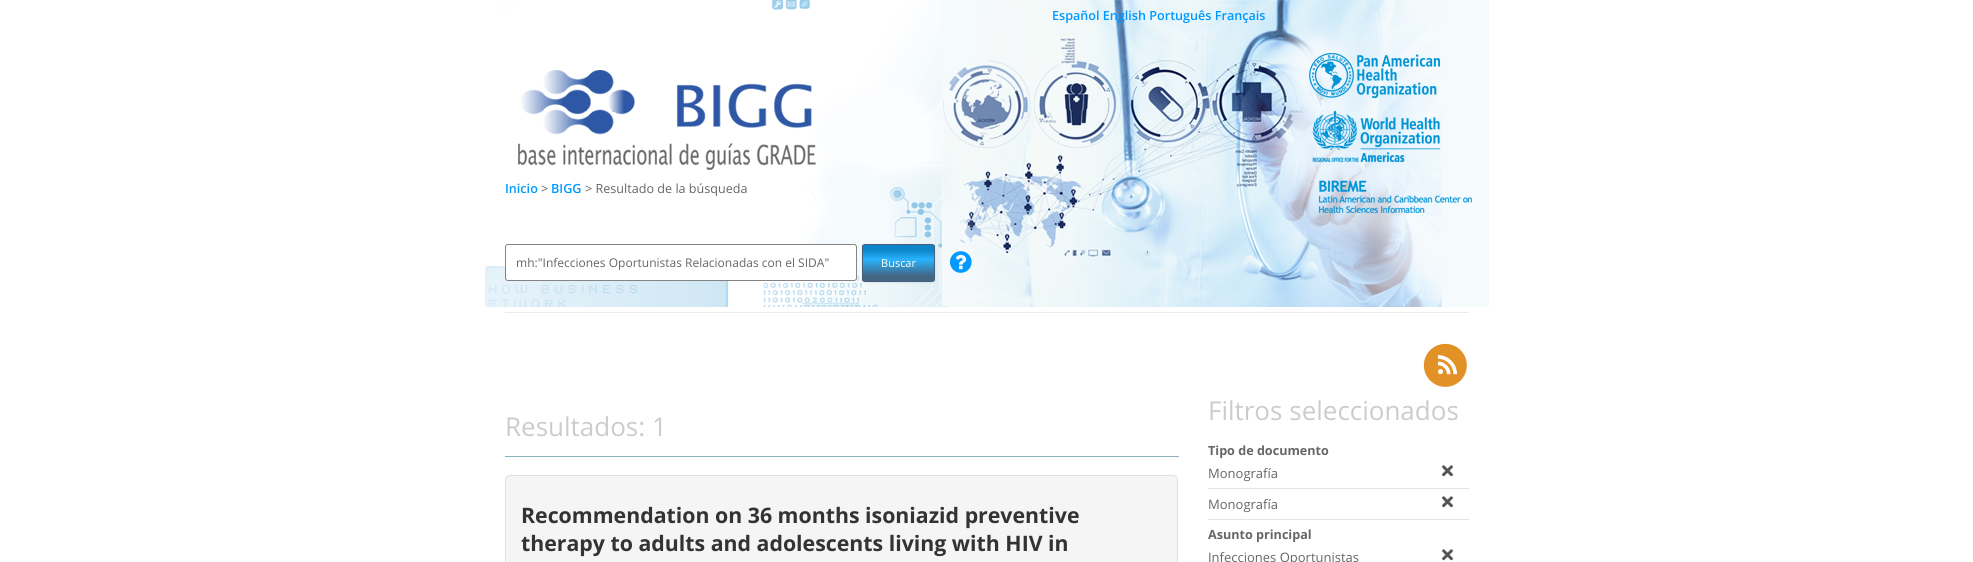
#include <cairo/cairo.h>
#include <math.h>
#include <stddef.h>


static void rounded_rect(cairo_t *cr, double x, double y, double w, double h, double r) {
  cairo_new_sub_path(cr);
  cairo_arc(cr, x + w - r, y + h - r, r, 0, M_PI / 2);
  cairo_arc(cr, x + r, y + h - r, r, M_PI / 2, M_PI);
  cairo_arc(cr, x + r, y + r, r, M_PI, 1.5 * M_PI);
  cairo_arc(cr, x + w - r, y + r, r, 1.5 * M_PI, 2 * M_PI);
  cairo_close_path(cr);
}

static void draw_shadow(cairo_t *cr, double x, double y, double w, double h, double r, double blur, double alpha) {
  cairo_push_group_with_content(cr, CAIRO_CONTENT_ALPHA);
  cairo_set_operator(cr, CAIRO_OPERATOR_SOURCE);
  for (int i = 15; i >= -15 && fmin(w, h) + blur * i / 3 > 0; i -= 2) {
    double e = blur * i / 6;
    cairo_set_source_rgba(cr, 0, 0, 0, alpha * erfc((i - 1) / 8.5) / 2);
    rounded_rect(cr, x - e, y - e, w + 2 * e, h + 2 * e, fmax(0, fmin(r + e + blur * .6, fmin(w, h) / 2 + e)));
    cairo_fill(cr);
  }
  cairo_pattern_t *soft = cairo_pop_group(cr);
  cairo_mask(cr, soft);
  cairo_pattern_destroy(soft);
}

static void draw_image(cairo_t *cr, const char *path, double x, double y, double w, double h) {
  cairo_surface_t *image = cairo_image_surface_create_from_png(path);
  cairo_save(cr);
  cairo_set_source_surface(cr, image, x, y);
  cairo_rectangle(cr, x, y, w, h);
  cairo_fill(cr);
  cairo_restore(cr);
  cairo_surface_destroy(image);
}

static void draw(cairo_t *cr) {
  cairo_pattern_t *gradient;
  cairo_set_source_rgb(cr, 1, 1, 1);
  cairo_paint(cr);
  draw_image(cr, "images/1.png", 485, 0, 1004, 307);
  draw_image(cr, "images/2.png", 1309, 53, 163, 160);
  cairo_set_source_rgb(cr, 234 / 255.0, 234 / 255.0, 234 / 255.0);
  cairo_rectangle(cr, 505, 312, 964, 1);
  cairo_fill(cr);
  cairo_set_source_rgb(cr, 1, 1, 1);
  rounded_rect(cr, 505.5, 244.5, 351, 36, 2.5);
  cairo_fill_preserve(cr);
  cairo_set_source_rgb(cr, 132 / 255.0, 132 / 255.0, 132 / 255.0);
  cairo_set_line_width(cr, 1);
  cairo_stroke(cr);
  cairo_set_source_rgb(cr, 64 / 255.0, 64 / 255.0, 64 / 255.0);
  draw_shadow(cr, 862, 245, 73, 38, 3, 1, 0.1);
  cairo_save(cr);
  rounded_rect(cr, 862, 244, 73, 38, 3);
  cairo_clip(cr);
  gradient = cairo_pattern_create_linear(863, 281, 863, 245);
  cairo_pattern_add_color_stop_rgba(gradient, 0.14, 66 / 255.0, 102 / 255.0, 132 / 255.0, 1);
  cairo_pattern_add_color_stop_rgba(gradient, 0.6, 41 / 255.0, 179 / 255.0, 253 / 255.0, 1);
  cairo_pattern_add_color_stop_rgba(gradient, 0.85, 14 / 255.0, 133 / 255.0, 202 / 255.0, 1);
  cairo_set_source(cr, gradient);
  cairo_pattern_destroy(gradient);
  cairo_rectangle(cr, 862, 245, 73, 36);
  cairo_fill(cr);
  cairo_restore(cr);
  rounded_rect(cr, 862.5, 244.5, 72, 37, 2.5);
  cairo_set_source_rgb(cr, 71 / 255.0, 95 / 255.0, 120 / 255.0);
  cairo_stroke(cr);
  draw_image(cr, "images/3.png", 950, 251, 22, 22);
  draw_image(cr, "images/4.png", 1423, 343, 44, 44);
  cairo_set_source_rgb(cr, 139 / 255.0, 176 / 255.0, 192 / 255.0);
  cairo_rectangle(cr, 505, 456, 674, 1);
  cairo_fill(cr);
  cairo_set_source_rgb(cr, 245 / 255.0, 245 / 255.0, 245 / 255.0);
  rounded_rect(cr, 505.5, 475.5, 672, 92, 4.5);
  cairo_fill_preserve(cr);
  cairo_set_source_rgb(cr, 223 / 255.0, 223 / 255.0, 223 / 255.0);
  cairo_stroke(cr);
  cairo_set_source_rgb(cr, 229 / 255.0, 229 / 255.0, 229 / 255.0);
  cairo_rectangle(cr, 1208, 488, 261, 1);
  cairo_fill(cr);
  draw_image(cr, "images/5.png", 1441, 464, 13, 13);
  cairo_rectangle(cr, 1208, 519, 261, 1);
  cairo_fill(cr);
  draw_image(cr, "images/5.png", 1441, 495, 13, 13);
  draw_image(cr, "images/5.png", 1441, 548, 13, 13);
  cairo_select_font_face(cr, "Open Sans SemiBold", CAIRO_FONT_SLANT_NORMAL, CAIRO_FONT_WEIGHT_NORMAL);
  cairo_set_font_size(cr, 12.6);
  cairo_set_source_rgb(cr, 0, 153 / 255.0, 1);
  cairo_move_to(cr, 1052, 20);
  cairo_show_text(cr, "Español English Português Français");
  cairo_move_to(cr, 505, 193);
  cairo_show_text(cr, "Inicio");
  cairo_select_font_face(cr, "Open Sans", CAIRO_FONT_SLANT_NORMAL, CAIRO_FONT_WEIGHT_NORMAL);
  cairo_set_source_rgb(cr, 102 / 255.0, 102 / 255.0, 102 / 255.0);
  cairo_move_to(cr, 541, 193);
  cairo_show_text(cr, ">");
  cairo_select_font_face(cr, "Open Sans SemiBold", CAIRO_FONT_SLANT_NORMAL, CAIRO_FONT_WEIGHT_NORMAL);
  cairo_set_source_rgb(cr, 0, 153 / 255.0, 1);
  cairo_move_to(cr, 551, 193);
  cairo_show_text(cr, "BIGG");
  cairo_select_font_face(cr, "Open Sans", CAIRO_FONT_SLANT_NORMAL, CAIRO_FONT_WEIGHT_NORMAL);
  cairo_set_source_rgb(cr, 102 / 255.0, 102 / 255.0, 102 / 255.0);
  cairo_move_to(cr, 585, 193);
  cairo_show_text(cr, "> Resultado de la búsqueda");
  cairo_set_font_size(cr, 12);
  cairo_move_to(cr, 516, 267);
  cairo_show_text(cr, "mh:\"Infecciones Oportunistas Relacionadas con el SIDA\"");
  cairo_set_font_size(cr, 11);
  cairo_set_source_rgb(cr, 1, 1, 1);
  cairo_move_to(cr, 881, 267);
  cairo_show_text(cr, "Buscar");
  cairo_set_font_size(cr, 26);
  cairo_set_source_rgb(cr, 204 / 255.0, 204 / 255.0, 204 / 255.0);
  cairo_move_to(cr, 505, 436);
  cairo_show_text(cr, "Resultados: 1");
  cairo_select_font_face(cr, "Open Sans", CAIRO_FONT_SLANT_NORMAL, CAIRO_FONT_WEIGHT_BOLD);
  cairo_set_font_size(cr, 21.3);
  cairo_set_source_rgb(cr, 51 / 255.0, 51 / 255.0, 51 / 255.0);
  cairo_move_to(cr, 521, 523);
  cairo_show_text(cr, "Recommendation on 36 months isoniazid preventive");
  cairo_move_to(cr, 521, 551);
  cairo_show_text(cr, "therapy to adults and adolescents living with HIV in");
  cairo_select_font_face(cr, "Open Sans", CAIRO_FONT_SLANT_NORMAL, CAIRO_FONT_WEIGHT_NORMAL);
  cairo_set_font_size(cr, 26);
  cairo_set_source_rgb(cr, 204 / 255.0, 204 / 255.0, 204 / 255.0);
  cairo_move_to(cr, 1208, 420);
  cairo_show_text(cr, "Filtros seleccionados");
  cairo_select_font_face(cr, "Open Sans", CAIRO_FONT_SLANT_NORMAL, CAIRO_FONT_WEIGHT_BOLD);
  cairo_set_font_size(cr, 12.6);
  cairo_set_source_rgb(cr, 102 / 255.0, 102 / 255.0, 102 / 255.0);
  cairo_move_to(cr, 1208, 455);
  cairo_show_text(cr, "Tipo de documento");
  cairo_select_font_face(cr, "Open Sans", CAIRO_FONT_SLANT_NORMAL, CAIRO_FONT_WEIGHT_NORMAL);
  cairo_set_font_size(cr, 13);
  cairo_move_to(cr, 1208, 478);
  cairo_show_text(cr, "Monografía");
  cairo_move_to(cr, 1208, 509);
  cairo_show_text(cr, "Monografía");
  cairo_select_font_face(cr, "Open Sans", CAIRO_FONT_SLANT_NORMAL, CAIRO_FONT_WEIGHT_BOLD);
  cairo_set_font_size(cr, 12.6);
  cairo_move_to(cr, 1208, 539);
  cairo_show_text(cr, "Asunto principal");
  cairo_select_font_face(cr, "Open Sans", CAIRO_FONT_SLANT_NORMAL, CAIRO_FONT_WEIGHT_NORMAL);
  cairo_set_font_size(cr, 13);
  cairo_move_to(cr, 1208, 562);
  cairo_show_text(cr, "Infecciones Oportunistas");
}

int main(void) {
  cairo_surface_t *surface = cairo_image_surface_create(CAIRO_FORMAT_RGB24, 1973, 562);
  cairo_t *cr = cairo_create(surface);
  cairo_font_options_t *options = cairo_font_options_create();
  cairo_font_options_set_hint_metrics(options, CAIRO_HINT_METRICS_OFF);
  cairo_font_options_set_hint_style(options, CAIRO_HINT_STYLE_NONE);
  cairo_set_font_options(cr, options);
  cairo_set_miter_limit(cr, 4);
  draw(cr);
  cairo_surface_write_to_png(surface, "out.png");
  cairo_font_options_destroy(options);
  cairo_destroy(cr);
  cairo_surface_destroy(surface);
  return 0;
}
